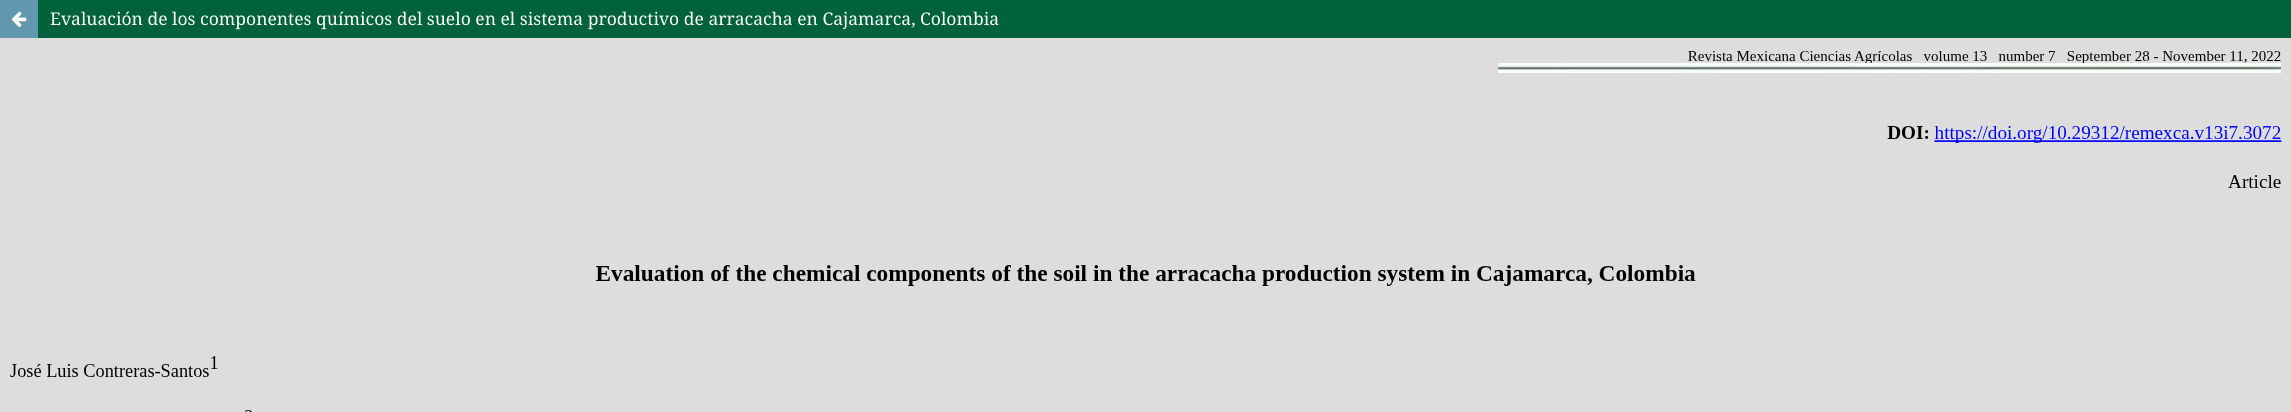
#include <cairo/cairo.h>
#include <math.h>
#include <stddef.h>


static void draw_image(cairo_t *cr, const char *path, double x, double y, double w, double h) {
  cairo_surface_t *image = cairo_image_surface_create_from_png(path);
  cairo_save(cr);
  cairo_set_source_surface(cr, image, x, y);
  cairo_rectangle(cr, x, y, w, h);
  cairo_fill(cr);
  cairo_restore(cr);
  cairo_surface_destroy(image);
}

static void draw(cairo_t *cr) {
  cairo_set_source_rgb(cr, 221 / 255.0, 221 / 255.0, 221 / 255.0);
  cairo_paint(cr);
  cairo_set_source_rgb(cr, 0, 98 / 255.0, 60 / 255.0);
  cairo_rectangle(cr, 38, 0, 2253, 38);
  cairo_fill(cr);
  cairo_set_source_rgb(cr, 98 / 255.0, 152 / 255.0, 174 / 255.0);
  cairo_rectangle(cr, 0, 0, 38, 38);
  cairo_fill(cr);
  draw_image(cr, "images/1.png", 11, 11, 16, 16);
  draw_image(cr, "images/2.png", 10, 51, 2272, 361);
  cairo_select_font_face(cr, "Noto Serif", CAIRO_FONT_SLANT_NORMAL, CAIRO_FONT_WEIGHT_NORMAL);
  cairo_set_font_size(cr, 17.5);
  cairo_set_source_rgb(cr, 1, 1, 1);
  cairo_move_to(cr, 50, 25);
  cairo_show_text(cr, "Evaluación de los componentes químicos del suelo en el sistema productivo de arracacha en Cajamarca, Colombia");
}

int main(void) {
  cairo_surface_t *surface = cairo_image_surface_create(CAIRO_FORMAT_RGB24, 2291, 412);
  cairo_t *cr = cairo_create(surface);
  cairo_font_options_t *options = cairo_font_options_create();
  cairo_font_options_set_hint_metrics(options, CAIRO_HINT_METRICS_OFF);
  cairo_font_options_set_hint_style(options, CAIRO_HINT_STYLE_NONE);
  cairo_set_font_options(cr, options);
  cairo_set_miter_limit(cr, 4);
  draw(cr);
  cairo_surface_write_to_png(surface, "out.png");
  cairo_font_options_destroy(options);
  cairo_destroy(cr);
  cairo_surface_destroy(surface);
  return 0;
}
